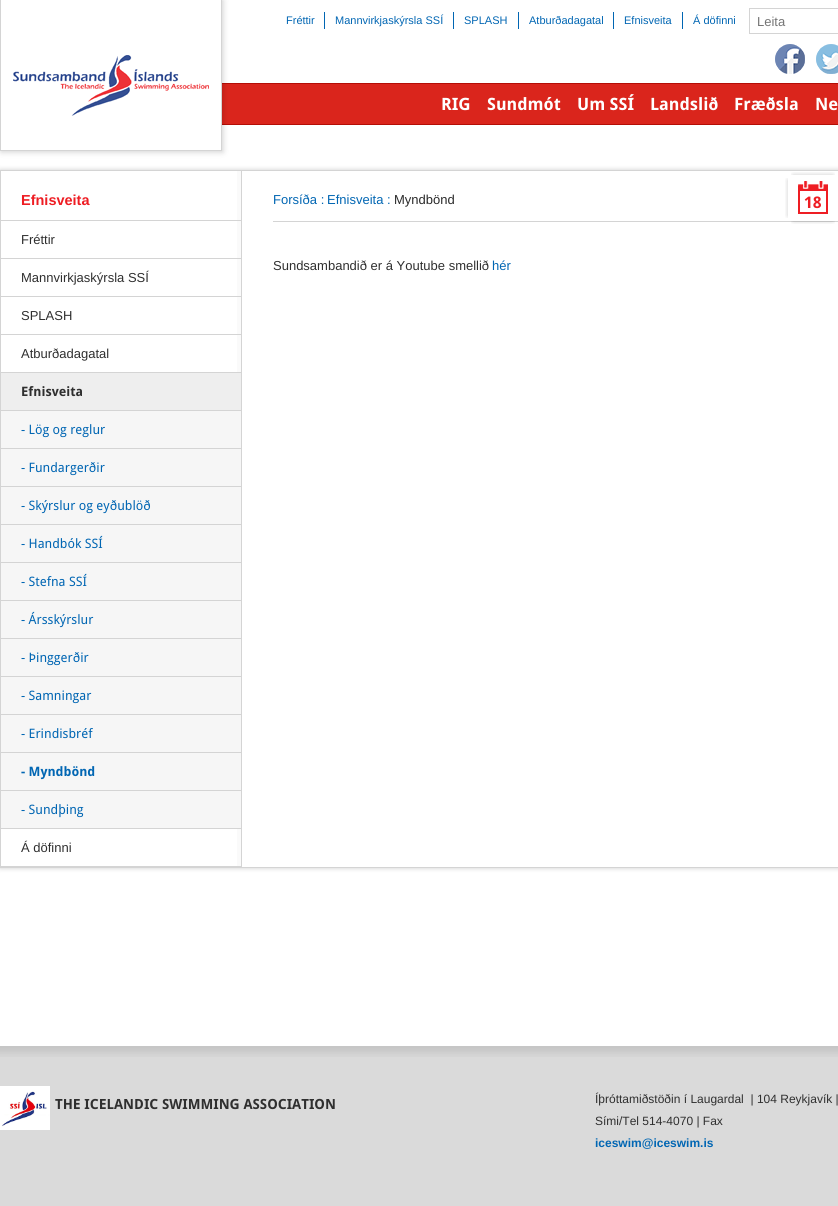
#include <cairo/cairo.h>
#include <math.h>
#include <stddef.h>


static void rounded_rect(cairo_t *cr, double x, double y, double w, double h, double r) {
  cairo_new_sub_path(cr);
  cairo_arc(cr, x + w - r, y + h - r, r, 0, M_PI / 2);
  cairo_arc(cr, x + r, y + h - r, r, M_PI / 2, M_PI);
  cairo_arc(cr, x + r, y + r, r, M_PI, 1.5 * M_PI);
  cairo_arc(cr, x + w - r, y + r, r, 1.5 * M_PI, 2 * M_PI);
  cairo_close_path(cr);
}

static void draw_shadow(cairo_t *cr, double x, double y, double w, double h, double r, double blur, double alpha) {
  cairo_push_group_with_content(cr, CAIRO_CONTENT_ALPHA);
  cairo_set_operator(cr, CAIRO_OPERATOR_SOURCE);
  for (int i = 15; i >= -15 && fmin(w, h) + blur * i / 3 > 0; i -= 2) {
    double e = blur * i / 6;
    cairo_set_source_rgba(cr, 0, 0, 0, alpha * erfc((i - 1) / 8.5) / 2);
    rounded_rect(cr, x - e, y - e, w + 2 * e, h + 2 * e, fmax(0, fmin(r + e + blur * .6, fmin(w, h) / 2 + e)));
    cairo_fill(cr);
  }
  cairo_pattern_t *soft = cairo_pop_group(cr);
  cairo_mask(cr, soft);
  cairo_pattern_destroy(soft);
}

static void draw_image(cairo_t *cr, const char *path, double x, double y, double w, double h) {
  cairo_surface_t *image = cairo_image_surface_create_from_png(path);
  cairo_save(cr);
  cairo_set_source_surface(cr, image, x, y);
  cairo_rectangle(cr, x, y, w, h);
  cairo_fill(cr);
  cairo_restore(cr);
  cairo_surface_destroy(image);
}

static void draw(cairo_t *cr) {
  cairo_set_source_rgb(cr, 1, 1, 1);
  cairo_paint(cr);
  cairo_set_source_rgb(cr, 1 / 255.0, 102 / 255.0, 179 / 255.0);
  cairo_rectangle(cr, 324, 12, 1, 17);
  cairo_fill(cr);
  cairo_rectangle(cr, 453, 12, 1, 17);
  cairo_fill(cr);
  cairo_rectangle(cr, 518, 12, 1, 17);
  cairo_fill(cr);
  cairo_rectangle(cr, 613, 12, 1, 17);
  cairo_fill(cr);
  cairo_rectangle(cr, 682, 12, 1, 17);
  cairo_fill(cr);
  cairo_rectangle(cr, 749.5, 8.5, 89, 25);
  cairo_set_source_rgb(cr, 212 / 255.0, 212 / 255.0, 212 / 255.0);
  cairo_set_line_width(cr, 1);
  cairo_stroke(cr);
  draw_image(cr, "images/1.png", 775, 44, 30, 30);
  draw_image(cr, "images/2.png", 816, 44, 22, 30);
  cairo_save(cr);
  cairo_set_fill_rule(cr, CAIRO_FILL_RULE_EVEN_ODD);
  cairo_new_path(cr);
  cairo_move_to(cr, 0, 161);
  cairo_line_to(cr, 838, 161);
  cairo_line_to(cr, 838, 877);
  cairo_line_to(cr, 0, 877);
  cairo_close_path(cr);
  cairo_move_to(cr, 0, 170);
  cairo_line_to(cr, 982, 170);
  cairo_line_to(cr, 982, 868);
  cairo_line_to(cr, 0, 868);
  cairo_close_path(cr);
  cairo_clip(cr);
  cairo_set_source_rgb(cr, 0, 0, 0);
  draw_shadow(cr, 0, 170, 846, 698, 0, 2.5, 0.2);
  cairo_restore(cr);
  cairo_set_source_rgb(cr, 250 / 255.0, 250 / 255.0, 250 / 255.0);
  cairo_rectangle(cr, 237, 170, 4, 698);
  cairo_fill(cr);
  cairo_rectangle(cr, 0.5, 170.5, 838, 697);
  cairo_set_source_rgb(cr, 212 / 255.0, 212 / 255.0, 212 / 255.0);
  cairo_stroke(cr);
  cairo_rectangle(cr, 241, 171, 1, 696);
  cairo_fill(cr);
  cairo_rectangle(cr, 1, 220, 240, 1);
  cairo_fill(cr);
  cairo_rectangle(cr, 1, 258, 240, 1);
  cairo_fill(cr);
  cairo_rectangle(cr, 1, 296, 240, 1);
  cairo_fill(cr);
  cairo_rectangle(cr, 1, 334, 240, 1);
  cairo_fill(cr);
  cairo_set_source_rgb(cr, 238 / 255.0, 238 / 255.0, 238 / 255.0);
  cairo_rectangle(cr, 1, 373, 240, 37);
  cairo_fill(cr);
  cairo_set_source_rgb(cr, 212 / 255.0, 212 / 255.0, 212 / 255.0);
  cairo_rectangle(cr, 1, 372, 240, 1);
  cairo_fill(cr);
  cairo_set_source_rgb(cr, 246 / 255.0, 246 / 255.0, 246 / 255.0);
  cairo_rectangle(cr, 1, 411, 240, 37);
  cairo_fill(cr);
  cairo_set_source_rgb(cr, 212 / 255.0, 212 / 255.0, 212 / 255.0);
  cairo_rectangle(cr, 1, 410, 240, 1);
  cairo_fill(cr);
  cairo_set_source_rgb(cr, 246 / 255.0, 246 / 255.0, 246 / 255.0);
  cairo_rectangle(cr, 1, 449, 240, 37);
  cairo_fill(cr);
  cairo_set_source_rgb(cr, 212 / 255.0, 212 / 255.0, 212 / 255.0);
  cairo_rectangle(cr, 1, 448, 240, 1);
  cairo_fill(cr);
  cairo_set_source_rgb(cr, 246 / 255.0, 246 / 255.0, 246 / 255.0);
  cairo_rectangle(cr, 1, 487, 240, 37);
  cairo_fill(cr);
  cairo_set_source_rgb(cr, 212 / 255.0, 212 / 255.0, 212 / 255.0);
  cairo_rectangle(cr, 1, 486, 240, 1);
  cairo_fill(cr);
  cairo_set_source_rgb(cr, 246 / 255.0, 246 / 255.0, 246 / 255.0);
  cairo_rectangle(cr, 1, 525, 240, 37);
  cairo_fill(cr);
  cairo_set_source_rgb(cr, 212 / 255.0, 212 / 255.0, 212 / 255.0);
  cairo_rectangle(cr, 1, 524, 240, 1);
  cairo_fill(cr);
  cairo_set_source_rgb(cr, 246 / 255.0, 246 / 255.0, 246 / 255.0);
  cairo_rectangle(cr, 1, 563, 240, 37);
  cairo_fill(cr);
  cairo_set_source_rgb(cr, 212 / 255.0, 212 / 255.0, 212 / 255.0);
  cairo_rectangle(cr, 1, 562, 240, 1);
  cairo_fill(cr);
  cairo_set_source_rgb(cr, 246 / 255.0, 246 / 255.0, 246 / 255.0);
  cairo_rectangle(cr, 1, 601, 240, 37);
  cairo_fill(cr);
  cairo_set_source_rgb(cr, 212 / 255.0, 212 / 255.0, 212 / 255.0);
  cairo_rectangle(cr, 1, 600, 240, 1);
  cairo_fill(cr);
  cairo_set_source_rgb(cr, 246 / 255.0, 246 / 255.0, 246 / 255.0);
  cairo_rectangle(cr, 1, 639, 240, 37);
  cairo_fill(cr);
  cairo_set_source_rgb(cr, 212 / 255.0, 212 / 255.0, 212 / 255.0);
  cairo_rectangle(cr, 1, 638, 240, 1);
  cairo_fill(cr);
  cairo_set_source_rgb(cr, 246 / 255.0, 246 / 255.0, 246 / 255.0);
  cairo_rectangle(cr, 1, 677, 240, 37);
  cairo_fill(cr);
  cairo_set_source_rgb(cr, 212 / 255.0, 212 / 255.0, 212 / 255.0);
  cairo_rectangle(cr, 1, 676, 240, 1);
  cairo_fill(cr);
  cairo_set_source_rgb(cr, 246 / 255.0, 246 / 255.0, 246 / 255.0);
  cairo_rectangle(cr, 1, 715, 240, 37);
  cairo_fill(cr);
  cairo_set_source_rgb(cr, 212 / 255.0, 212 / 255.0, 212 / 255.0);
  cairo_rectangle(cr, 1, 714, 240, 1);
  cairo_fill(cr);
  cairo_set_source_rgb(cr, 246 / 255.0, 246 / 255.0, 246 / 255.0);
  cairo_rectangle(cr, 1, 753, 240, 37);
  cairo_fill(cr);
  cairo_set_source_rgb(cr, 212 / 255.0, 212 / 255.0, 212 / 255.0);
  cairo_rectangle(cr, 1, 752, 240, 1);
  cairo_fill(cr);
  cairo_set_source_rgb(cr, 246 / 255.0, 246 / 255.0, 246 / 255.0);
  cairo_rectangle(cr, 1, 791, 240, 37);
  cairo_fill(cr);
  cairo_set_source_rgb(cr, 212 / 255.0, 212 / 255.0, 212 / 255.0);
  cairo_rectangle(cr, 1, 790, 240, 1);
  cairo_fill(cr);
  cairo_rectangle(cr, 1, 828, 240, 1);
  cairo_fill(cr);
  cairo_rectangle(cr, 1, 866, 240, 1);
  cairo_fill(cr);
  cairo_rectangle(cr, 273, 221, 565, 1);
  cairo_fill(cr);
  cairo_set_source_rgb(cr, 218 / 255.0, 37 / 255.0, 28 / 255.0);
  cairo_rectangle(cr, 222, 84, 616, 40);
  cairo_fill(cr);
  cairo_set_source_rgb(cr, 180 / 255.0, 14 / 255.0, 6 / 255.0);
  cairo_rectangle(cr, 222, 83, 616, 1);
  cairo_fill(cr);
  cairo_rectangle(cr, 222, 124, 616, 1);
  cairo_fill(cr);
  cairo_set_source_rgb(cr, 0, 0, 0);
  draw_shadow(cr, 1, 0, 222, 152, 0, 3, 0.18);
  cairo_set_source_rgb(cr, 1, 1, 1);
  cairo_rectangle(cr, 0.5, -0.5, 221, 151);
  cairo_fill_preserve(cr);
  cairo_set_source_rgb(cr, 212 / 255.0, 212 / 255.0, 212 / 255.0);
  cairo_stroke(cr);
  draw_image(cr, "images/3.png", 13, 55, 196, 61);
  cairo_save(cr);
  cairo_rectangle(cr, 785, 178, 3, 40);
  cairo_clip(cr);
  cairo_set_source_rgb(cr, 0, 0, 0);
  draw_shadow(cr, 788, 180, 40, 36, 0, 2.5, 0.2);
  cairo_restore(cr);
  cairo_save(cr);
  cairo_rectangle(cr, 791, 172, 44, 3);
  cairo_clip(cr);
  cairo_set_source_rgb(cr, 0, 0, 0);
  draw_shadow(cr, 793, 175, 40, 36, 0, 2.5, 0.2);
  cairo_restore(cr);
  cairo_save(cr);
  cairo_rectangle(cr, 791, 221, 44, 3);
  cairo_clip(cr);
  cairo_set_source_rgb(cr, 0, 0, 0);
  draw_shadow(cr, 793, 185, 40, 36, 0, 2.5, 0.2);
  cairo_restore(cr);
  draw_image(cr, "images/4.png", 798, 181, 30, 33);
  cairo_set_source_rgb(cr, 218 / 255.0, 218 / 255.0, 218 / 255.0);
  cairo_rectangle(cr, 0, 1057, 838, 149);
  cairo_fill(cr);
  draw_image(cr, "images/5.png", 0, 1046, 838, 11);
  draw_image(cr, "images/6.png", 0, 1086, 50, 44);
  cairo_select_font_face(cr, "Liberation Sans", CAIRO_FONT_SLANT_NORMAL, CAIRO_FONT_WEIGHT_NORMAL);
  cairo_set_font_size(cr, 11);
  cairo_set_source_rgb(cr, 1 / 255.0, 102 / 255.0, 179 / 255.0);
  cairo_move_to(cr, 286, 24);
  cairo_show_text(cr, "Fréttir");
  cairo_move_to(cr, 335, 24);
  cairo_show_text(cr, "Mannvirkjaskýrsla SSÍ");
  cairo_move_to(cr, 464, 24);
  cairo_show_text(cr, "SPLASH");
  cairo_move_to(cr, 529, 24);
  cairo_show_text(cr, "Atburðadagatal");
  cairo_move_to(cr, 624, 24);
  cairo_show_text(cr, "Efnisveita");
  cairo_move_to(cr, 693, 24);
  cairo_show_text(cr, "Á döfinni");
  cairo_set_font_size(cr, 13);
  cairo_set_source_rgb(cr, 117 / 255.0, 117 / 255.0, 117 / 255.0);
  cairo_move_to(cr, 757, 26);
  cairo_show_text(cr, "Leita");
  cairo_select_font_face(cr, "Liberation Sans", CAIRO_FONT_SLANT_NORMAL, CAIRO_FONT_WEIGHT_BOLD);
  cairo_set_font_size(cr, 14.5);
  cairo_set_source_rgb(cr, 238 / 255.0, 29 / 255.0, 35 / 255.0);
  cairo_move_to(cr, 21, 205);
  cairo_show_text(cr, "Efnisveita");
  cairo_select_font_face(cr, "Liberation Sans", CAIRO_FONT_SLANT_NORMAL, CAIRO_FONT_WEIGHT_NORMAL);
  cairo_set_font_size(cr, 13);
  cairo_set_source_rgb(cr, 47 / 255.0, 47 / 255.0, 47 / 255.0);
  cairo_move_to(cr, 21, 244);
  cairo_show_text(cr, "Fréttir");
  cairo_move_to(cr, 21, 282);
  cairo_show_text(cr, "Mannvirkjaskýrsla SSÍ");
  cairo_move_to(cr, 21, 320);
  cairo_show_text(cr, "SPLASH");
  cairo_move_to(cr, 21, 358);
  cairo_show_text(cr, "Atburðadagatal");
  cairo_select_font_face(cr, "Droid Sans", CAIRO_FONT_SLANT_NORMAL, CAIRO_FONT_WEIGHT_BOLD);
  cairo_move_to(cr, 21, 396);
  cairo_show_text(cr, "Efnisveita");
  cairo_select_font_face(cr, "Droid Sans", CAIRO_FONT_SLANT_NORMAL, CAIRO_FONT_WEIGHT_NORMAL);
  cairo_set_source_rgb(cr, 1 / 255.0, 102 / 255.0, 179 / 255.0);
  cairo_move_to(cr, 21, 434);
  cairo_show_text(cr, "- Lög og reglur");
  cairo_move_to(cr, 21, 472);
  cairo_show_text(cr, "- Fundargerðir");
  cairo_move_to(cr, 21, 510);
  cairo_show_text(cr, "- Skýrslur og eyðublöð");
  cairo_move_to(cr, 21, 548);
  cairo_show_text(cr, "- Handbók SSÍ");
  cairo_move_to(cr, 21, 586);
  cairo_show_text(cr, "- Stefna SSÍ");
  cairo_move_to(cr, 21, 624);
  cairo_show_text(cr, "- Ársskýrslur");
  cairo_move_to(cr, 21, 662);
  cairo_show_text(cr, "- Þinggerðir");
  cairo_move_to(cr, 21, 700);
  cairo_show_text(cr, "- Samningar");
  cairo_move_to(cr, 21, 738);
  cairo_show_text(cr, "- Erindisbréf");
  cairo_select_font_face(cr, "Droid Sans", CAIRO_FONT_SLANT_NORMAL, CAIRO_FONT_WEIGHT_BOLD);
  cairo_move_to(cr, 21, 776);
  cairo_show_text(cr, "- Myndbönd");
  cairo_select_font_face(cr, "Droid Sans", CAIRO_FONT_SLANT_NORMAL, CAIRO_FONT_WEIGHT_NORMAL);
  cairo_move_to(cr, 21, 814);
  cairo_show_text(cr, "- Sundþing");
  cairo_select_font_face(cr, "Liberation Sans", CAIRO_FONT_SLANT_NORMAL, CAIRO_FONT_WEIGHT_NORMAL);
  cairo_set_source_rgb(cr, 47 / 255.0, 47 / 255.0, 47 / 255.0);
  cairo_move_to(cr, 21, 852);
  cairo_show_text(cr, "Á döfinni");
  cairo_set_source_rgb(cr, 1 / 255.0, 102 / 255.0, 179 / 255.0);
  cairo_move_to(cr, 273, 204);
  cairo_show_text(cr, "Forsíða :");
  cairo_move_to(cr, 327, 204);
  cairo_show_text(cr, "Efnisveita :");
  cairo_set_source_rgb(cr, 41 / 255.0, 41 / 255.0, 41 / 255.0);
  cairo_move_to(cr, 394, 204);
  cairo_show_text(cr, "Myndbönd");
  cairo_set_source_rgb(cr, 47 / 255.0, 47 / 255.0, 47 / 255.0);
  cairo_move_to(cr, 273, 270);
  cairo_show_text(cr, "Sundsambandið er á Youtube smellið");
  cairo_set_source_rgb(cr, 1 / 255.0, 102 / 255.0, 179 / 255.0);
  cairo_move_to(cr, 492, 270);
  cairo_show_text(cr, "hér");
  cairo_select_font_face(cr, "Droid Sans", CAIRO_FONT_SLANT_NORMAL, CAIRO_FONT_WEIGHT_BOLD);
  cairo_set_font_size(cr, 17);
  cairo_set_source_rgb(cr, 1, 1, 1);
  cairo_move_to(cr, 441, 110);
  cairo_show_text(cr, "RIG");
  cairo_move_to(cr, 487, 110);
  cairo_show_text(cr, "Sundmót");
  cairo_move_to(cr, 577, 110);
  cairo_show_text(cr, "Um SSÍ");
  cairo_move_to(cr, 650, 110);
  cairo_show_text(cr, "Landslið");
  cairo_move_to(cr, 734, 110);
  cairo_show_text(cr, "Fræðsla");
  cairo_move_to(cr, 815, 110);
  cairo_show_text(cr, "Ne");
  cairo_set_font_size(cr, 16);
  cairo_set_source_rgb(cr, 238 / 255.0, 29 / 255.0, 35 / 255.0);
  cairo_move_to(cr, 804, 208);
  cairo_show_text(cr, "18");
  cairo_set_font_size(cr, 14);
  cairo_set_source_rgb(cr, 47 / 255.0, 47 / 255.0, 47 / 255.0);
  cairo_move_to(cr, 55, 1109);
  cairo_show_text(cr, "THE ICELANDIC SWIMMING ASSOCIATION");
  cairo_select_font_face(cr, "Liberation Sans", CAIRO_FONT_SLANT_NORMAL, CAIRO_FONT_WEIGHT_NORMAL);
  cairo_set_font_size(cr, 12);
  cairo_move_to(cr, 595, 1103);
  cairo_show_text(cr, "Íþróttamiðstöðin í Laugardal  | 104 Reykjavík |");
  cairo_move_to(cr, 595, 1125);
  cairo_show_text(cr, "Sími/Tel 514-4070 | Fax");
  cairo_select_font_face(cr, "Liberation Sans", CAIRO_FONT_SLANT_NORMAL, CAIRO_FONT_WEIGHT_BOLD);
  cairo_set_source_rgb(cr, 1 / 255.0, 102 / 255.0, 179 / 255.0);
  cairo_move_to(cr, 595, 1147);
  cairo_show_text(cr, "iceswim@iceswim.is");
}

int main(void) {
  cairo_surface_t *surface = cairo_image_surface_create(CAIRO_FORMAT_RGB24, 838, 1206);
  cairo_t *cr = cairo_create(surface);
  cairo_font_options_t *options = cairo_font_options_create();
  cairo_font_options_set_hint_metrics(options, CAIRO_HINT_METRICS_OFF);
  cairo_font_options_set_hint_style(options, CAIRO_HINT_STYLE_NONE);
  cairo_set_font_options(cr, options);
  cairo_set_miter_limit(cr, 4);
  draw(cr);
  cairo_surface_write_to_png(surface, "out.png");
  cairo_font_options_destroy(options);
  cairo_destroy(cr);
  cairo_surface_destroy(surface);
  return 0;
}
